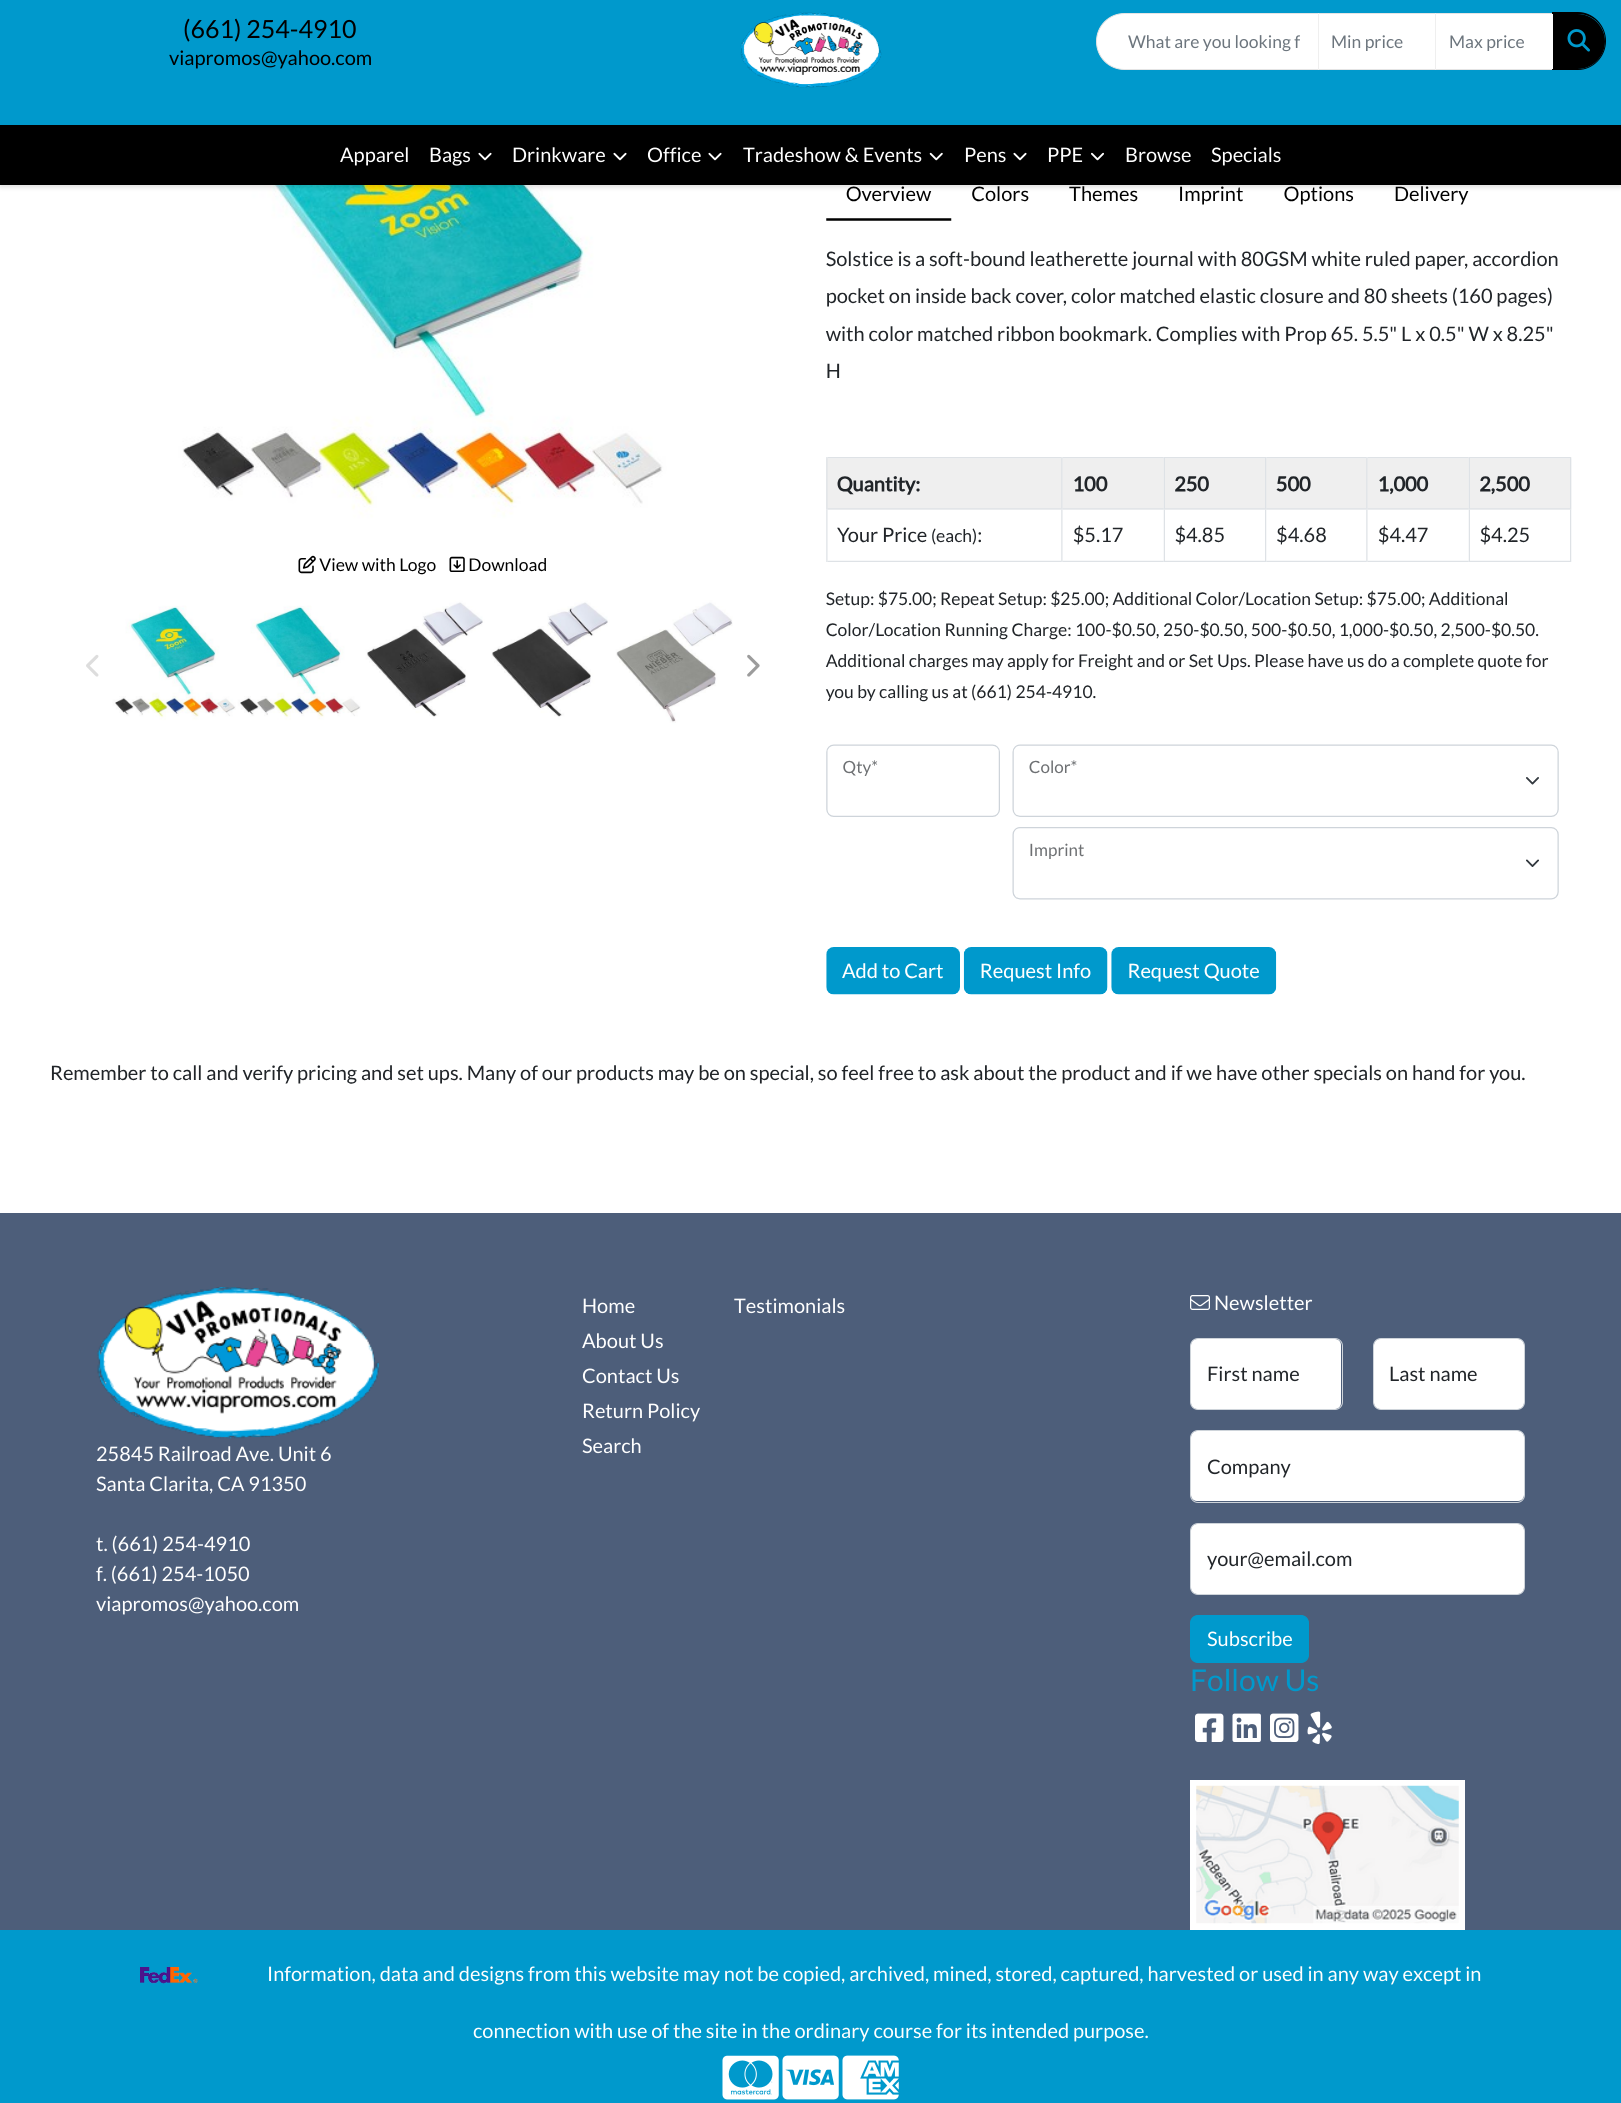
#include <cairo/cairo.h>
#include <math.h>
#include <stddef.h>


static void rounded_rect(cairo_t *cr, double x, double y, double w, double h, double r) {
  cairo_new_sub_path(cr);
  cairo_arc(cr, x + w - r, y + h - r, r, 0, M_PI / 2);
  cairo_arc(cr, x + r, y + h - r, r, M_PI / 2, M_PI);
  cairo_arc(cr, x + r, y + r, r, M_PI, 1.5 * M_PI);
  cairo_arc(cr, x + w - r, y + r, r, 1.5 * M_PI, 2 * M_PI);
  cairo_close_path(cr);
}

static void draw_shadow(cairo_t *cr, double x, double y, double w, double h, double r, double blur, double alpha) {
  cairo_push_group_with_content(cr, CAIRO_CONTENT_ALPHA);
  cairo_set_operator(cr, CAIRO_OPERATOR_SOURCE);
  for (int i = 15; i >= -15 && fmin(w, h) + blur * i / 3 > 0; i -= 2) {
    double e = blur * i / 6;
    cairo_set_source_rgba(cr, 0, 0, 0, alpha * erfc((i - 1) / 8.5) / 2);
    rounded_rect(cr, x - e, y - e, w + 2 * e, h + 2 * e, fmax(0, fmin(r + e + blur * .6, fmin(w, h) / 2 + e)));
    cairo_fill(cr);
  }
  cairo_pattern_t *soft = cairo_pop_group(cr);
  cairo_mask(cr, soft);
  cairo_pattern_destroy(soft);
}

static void draw_image(cairo_t *cr, const char *path, double x, double y, double w, double h) {
  cairo_surface_t *image = cairo_image_surface_create_from_png(path);
  cairo_save(cr);
  cairo_set_source_surface(cr, image, x, y);
  cairo_rectangle(cr, x, y, w, h);
  cairo_fill(cr);
  cairo_restore(cr);
  cairo_surface_destroy(image);
}

static void draw(cairo_t *cr) {
  cairo_set_source_rgb(cr, 1, 1, 1);
  cairo_paint(cr);
  draw_image(cr, "images/6.png", 51, 185, 1521, 899);
  cairo_set_source_rgb(cr, 0, 0, 0);
  draw_shadow(cr, 0, 0, 1621, 185, 0, 3, 0.1);
  cairo_set_source_rgb(cr, 0, 153 / 255.0, 204 / 255.0);
  cairo_rectangle(cr, 0, 0, 1621, 125);
  cairo_fill(cr);
  draw_image(cr, "images/1.png", 740, 12, 142, 76);
  cairo_set_source_rgb(cr, 1, 1, 1);
  cairo_new_path(cr);
  cairo_move_to(cr, 1124.5, 13.5);
  cairo_line_to(cr, 1318.5, 13.5);
  cairo_line_to(cr, 1318.5, 69.5);
  cairo_line_to(cr, 1124.5, 69.5);
  cairo_curve_to(cr, 1109, 69.5, 1096.5, 57, 1096.5, 41.5);
  cairo_curve_to(cr, 1096.5, 26, 1109, 13.5, 1124.5, 13.5);
  cairo_close_path(cr);
  cairo_fill_preserve(cr);
  cairo_set_source_rgb(cr, 228 / 255.0, 228 / 255.0, 228 / 255.0);
  cairo_set_line_width(cr, 1);
  cairo_stroke(cr);
  cairo_set_source_rgb(cr, 1, 1, 1);
  cairo_rectangle(cr, 1319, 14, 116, 55);
  cairo_fill(cr);
  cairo_set_source_rgb(cr, 228 / 255.0, 228 / 255.0, 228 / 255.0);
  cairo_rectangle(cr, 1318, 13, 236, 1);
  cairo_fill(cr);
  cairo_rectangle(cr, 1318, 69, 236, 1);
  cairo_fill(cr);
  cairo_set_source_rgb(cr, 239 / 255.0, 239 / 255.0, 239 / 255.0);
  cairo_rectangle(cr, 1318, 13, 1, 57);
  cairo_fill(cr);
  cairo_set_source_rgb(cr, 1, 1, 1);
  cairo_rectangle(cr, 1436, 14, 117, 55);
  cairo_fill(cr);
  cairo_set_source_rgb(cr, 239 / 255.0, 239 / 255.0, 239 / 255.0);
  cairo_rectangle(cr, 1435, 13, 1, 57);
  cairo_fill(cr);
  cairo_set_source_rgb(cr, 0, 0, 0);
  cairo_new_path(cr);
  cairo_move_to(cr, 1553, 14);
  cairo_line_to(cr, 1577.5, 14);
  cairo_curve_to(cr, 1592.5, 14, 1605, 26.5, 1605, 41.5);
  cairo_curve_to(cr, 1605, 56.5, 1592.5, 69, 1577.5, 69);
  cairo_line_to(cr, 1553, 69);
  cairo_close_path(cr);
  cairo_fill(cr);
  cairo_set_fill_rule(cr, CAIRO_FILL_RULE_EVEN_ODD);
  cairo_new_path(cr);
  cairo_move_to(cr, 1552, 12);
  cairo_line_to(cr, 1578, 12);
  cairo_curve_to(cr, 1593, 12, 1606, 25, 1606, 41);
  cairo_curve_to(cr, 1606, 57, 1593, 70, 1578, 70);
  cairo_line_to(cr, 1552, 70);
  cairo_close_path(cr);
  cairo_move_to(cr, 1552, 14);
  cairo_line_to(cr, 1578, 14);
  cairo_curve_to(cr, 1593, 14, 1605, 26, 1605, 41);
  cairo_curve_to(cr, 1605, 56, 1593, 69, 1578, 69);
  cairo_line_to(cr, 1552, 69);
  cairo_close_path(cr);
  cairo_fill(cr);
  draw_image(cr, "images/2.png", 1567, 29, 23, 23);
  cairo_set_source_rgb(cr, 0, 0, 0);
  draw_shadow(cr, 0, 128, 1621, 60, 0, 2.5, 0.07);
  cairo_set_source_rgb(cr, 0, 0, 0);
  cairo_rectangle(cr, 0, 125, 1621, 60);
  cairo_fill(cr);
  draw_image(cr, "images/3.png", 478, 152, 14, 9);
  draw_image(cr, "images/3.png", 613, 152, 14, 9);
  draw_image(cr, "images/3.png", 708, 152, 14, 9);
  draw_image(cr, "images/4.png", 929, 152, 14, 9);
  draw_image(cr, "images/3.png", 1013, 152, 14, 9);
  draw_image(cr, "images/5.png", 1091, 152, 13, 9);
  cairo_set_source_rgb(cr, 77 / 255.0, 94 / 255.0, 122 / 255.0);
  cairo_rectangle(cr, 0, 1213, 1621, 717);
  cairo_fill(cr);
  draw_image(cr, "images/7.png", 1190, 1295, 20, 15);
  cairo_set_source_rgb(cr, 1, 1, 1);
  rounded_rect(cr, 1191, 1339, 150, 70, 6);
  cairo_fill(cr);
  rounded_rect(cr, 1190.5, 1338.5, 152, 71, 7.5);
  cairo_set_source_rgb(cr, 206 / 255.0, 212 / 255.0, 218 / 255.0);
  cairo_stroke(cr);
  cairo_set_source_rgb(cr, 1, 1, 1);
  rounded_rect(cr, 1374, 1339, 150, 70, 6);
  cairo_fill(cr);
  rounded_rect(cr, 1373.5, 1338.5, 151, 71, 7.5);
  cairo_set_source_rgb(cr, 206 / 255.0, 212 / 255.0, 218 / 255.0);
  cairo_stroke(cr);
  cairo_set_source_rgb(cr, 1, 1, 1);
  rounded_rect(cr, 1191, 1431, 333, 70, 6);
  cairo_fill(cr);
  rounded_rect(cr, 1190.5, 1430.5, 334, 72, 7.5);
  cairo_set_source_rgb(cr, 206 / 255.0, 212 / 255.0, 218 / 255.0);
  cairo_stroke(cr);
  cairo_set_source_rgb(cr, 1, 1, 1);
  rounded_rect(cr, 1191, 1524, 333, 70, 6);
  cairo_fill(cr);
  rounded_rect(cr, 1190.5, 1523.5, 334, 71, 7.5);
  cairo_set_source_rgb(cr, 206 / 255.0, 212 / 255.0, 218 / 255.0);
  cairo_stroke(cr);
  cairo_set_source_rgb(cr, 0, 153 / 255.0, 204 / 255.0);
  rounded_rect(cr, 1190.5, 1615.5, 118, 47, 7.5);
  cairo_fill_preserve(cr);
  cairo_stroke(cr);
  draw_image(cr, "images/8.png", 1195, 1713, 29, 29);
  draw_image(cr, "images/9.png", 1232, 1713, 29, 29);
  draw_image(cr, "images/10.png", 1270, 1713, 29, 29);
  draw_image(cr, "images/11.png", 1307, 1711, 25, 34);
  cairo_set_source_rgb(cr, 1, 1, 1);
  cairo_rectangle(cr, 1190, 1780, 275, 150);
  cairo_fill(cr);
  draw_image(cr, "images/12.png", 1196, 1785, 263, 139);
  draw_image(cr, "images/13.png", 97, 1287, 282, 152);
  cairo_set_source_rgb(cr, 0, 153 / 255.0, 204 / 255.0);
  cairo_rectangle(cr, 0, 1930, 1621, 173);
  cairo_fill(cr);
  draw_image(cr, "images/14.png", 140, 1967, 58, 17);
  draw_image(cr, "images/15.png", 722, 2055, 57, 45);
  draw_image(cr, "images/16.png", 782, 2055, 57, 45);
  draw_image(cr, "images/17.png", 842, 2055, 57, 45);
  cairo_select_font_face(cr, "Lato", CAIRO_FONT_SLANT_NORMAL, CAIRO_FONT_WEIGHT_NORMAL);
  cairo_set_font_size(cr, 25);
  cairo_set_source_rgb(cr, 0, 0, 0);
  cairo_move_to(cr, 183, 38);
  cairo_show_text(cr, "(661) 254-4910");
  cairo_set_font_size(cr, 20);
  cairo_move_to(cr, 169, 65);
  cairo_show_text(cr, "viapromos@yahoo.com");
  cairo_set_font_size(cr, 17.5);
  cairo_set_source_rgb(cr, 108 / 255.0, 117 / 255.0, 125 / 255.0);
  cairo_move_to(cr, 1128, 48);
  cairo_show_text(cr, "What are you looking f");
  cairo_move_to(cr, 1331, 48);
  cairo_show_text(cr, "Min price");
  cairo_move_to(cr, 1449, 48);
  cairo_show_text(cr, "Max price");
  cairo_set_font_size(cr, 20);
  cairo_set_source_rgb(cr, 1, 1, 1);
  cairo_move_to(cr, 340, 162);
  cairo_show_text(cr, "Apparel");
  cairo_move_to(cr, 429, 162);
  cairo_show_text(cr, "Bags");
  cairo_move_to(cr, 512, 162);
  cairo_show_text(cr, "Drinkware");
  cairo_move_to(cr, 647, 162);
  cairo_show_text(cr, "Office");
  cairo_move_to(cr, 743, 162);
  cairo_show_text(cr, "Tradeshow & Events");
  cairo_move_to(cr, 964, 162);
  cairo_show_text(cr, "Pens");
  cairo_move_to(cr, 1047, 162);
  cairo_show_text(cr, "PPE");
  cairo_move_to(cr, 1125, 162);
  cairo_show_text(cr, "Browse");
  cairo_move_to(cr, 1211, 162);
  cairo_show_text(cr, "Specials");
  cairo_move_to(cr, 582, 1313);
  cairo_show_text(cr, "Home");
  cairo_move_to(cr, 582, 1348);
  cairo_show_text(cr, "About Us");
  cairo_move_to(cr, 582, 1383);
  cairo_show_text(cr, "Contact Us");
  cairo_move_to(cr, 582, 1418);
  cairo_show_text(cr, "Return Policy");
  cairo_move_to(cr, 582, 1453);
  cairo_show_text(cr, "Search");
  cairo_move_to(cr, 734, 1313);
  cairo_show_text(cr, "Testimonials");
  cairo_move_to(cr, 1214, 1310);
  cairo_show_text(cr, "Newsletter");
  cairo_set_source_rgb(cr, 33 / 255.0, 37 / 255.0, 41 / 255.0);
  cairo_move_to(cr, 1207, 1381);
  cairo_show_text(cr, "First name");
  cairo_move_to(cr, 1389, 1381);
  cairo_show_text(cr, "Last name");
  cairo_move_to(cr, 1207, 1474);
  cairo_show_text(cr, "Company");
  cairo_move_to(cr, 1207, 1566);
  cairo_show_text(cr, "your@email.com");
  cairo_set_source_rgb(cr, 1, 1, 1);
  cairo_move_to(cr, 1207, 1646);
  cairo_show_text(cr, "Subscribe");
  cairo_set_font_size(cr, 30);
  cairo_set_source_rgb(cr, 0, 153 / 255.0, 204 / 255.0);
  cairo_move_to(cr, 1190, 1691);
  cairo_show_text(cr, "Follow Us");
  cairo_set_font_size(cr, 20);
  cairo_set_source_rgb(cr, 1, 1, 1);
  cairo_move_to(cr, 96, 1461);
  cairo_show_text(cr, "25845 Railroad Ave. Unit 6");
  cairo_move_to(cr, 96, 1491);
  cairo_show_text(cr, "Santa Clarita, CA 91350");
  cairo_move_to(cr, 96, 1551);
  cairo_show_text(cr, "t. (661) 254-4910");
  cairo_move_to(cr, 96, 1581);
  cairo_show_text(cr, "f. (661) 254-1050");
  cairo_move_to(cr, 96, 1611);
  cairo_show_text(cr, "viapromos@yahoo.com");
  cairo_move_to(cr, 267, 1981);
  cairo_show_text(cr, "Information, data and designs from this website may not be copied, archived, mined, stored, captured, harvested or used in any way except in");
  cairo_move_to(cr, 473, 2038);
  cairo_show_text(cr, "connection with use of the site in the ordinary course for its intended purpose.");
}

int main(void) {
  cairo_surface_t *surface = cairo_image_surface_create(CAIRO_FORMAT_RGB24, 1621, 2103);
  cairo_t *cr = cairo_create(surface);
  cairo_font_options_t *options = cairo_font_options_create();
  cairo_font_options_set_hint_metrics(options, CAIRO_HINT_METRICS_OFF);
  cairo_font_options_set_hint_style(options, CAIRO_HINT_STYLE_NONE);
  cairo_set_font_options(cr, options);
  cairo_set_miter_limit(cr, 4);
  draw(cr);
  cairo_surface_write_to_png(surface, "out.png");
  cairo_font_options_destroy(options);
  cairo_destroy(cr);
  cairo_surface_destroy(surface);
  return 0;
}
